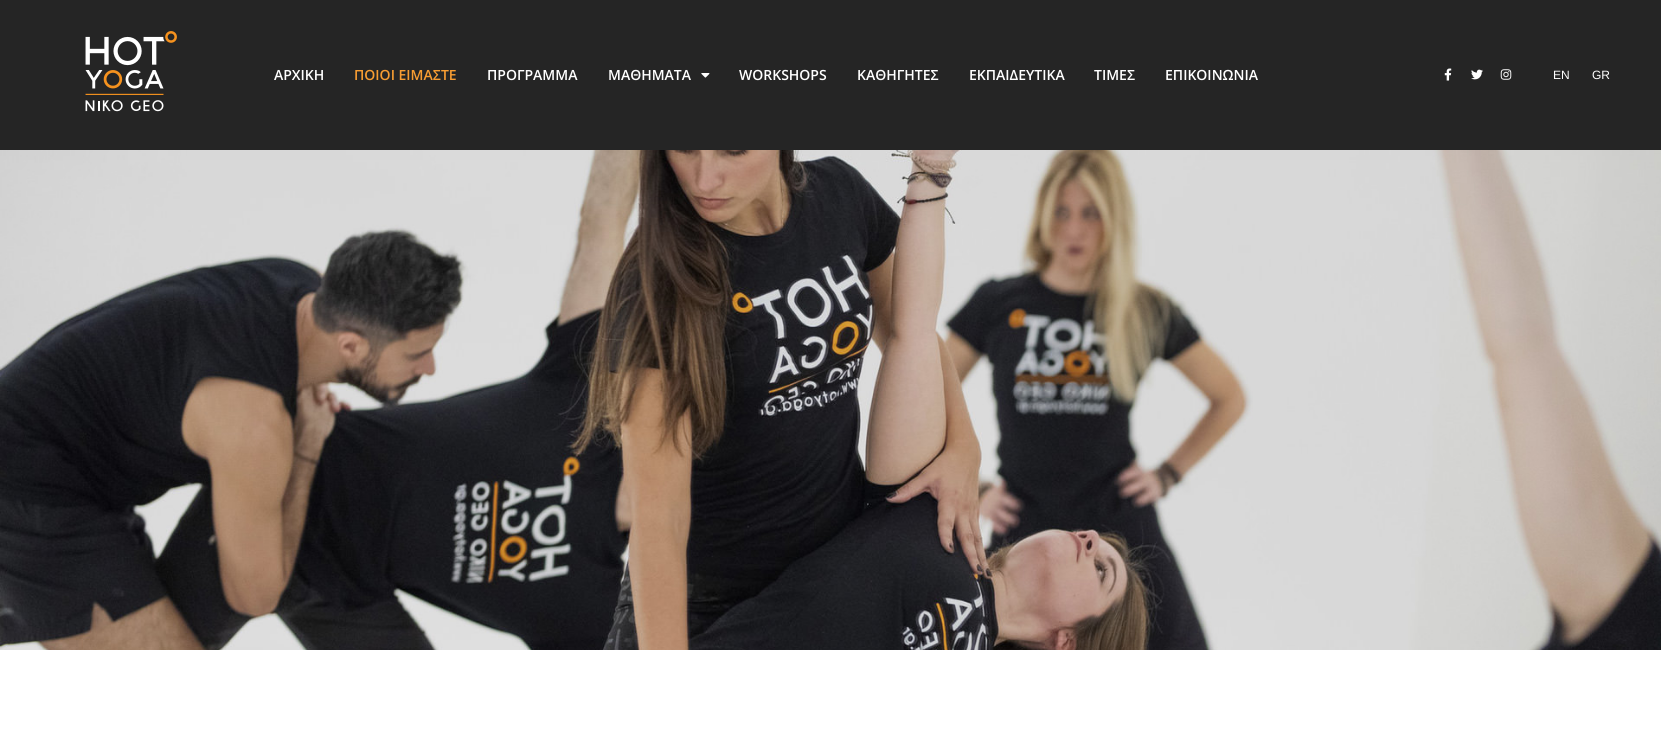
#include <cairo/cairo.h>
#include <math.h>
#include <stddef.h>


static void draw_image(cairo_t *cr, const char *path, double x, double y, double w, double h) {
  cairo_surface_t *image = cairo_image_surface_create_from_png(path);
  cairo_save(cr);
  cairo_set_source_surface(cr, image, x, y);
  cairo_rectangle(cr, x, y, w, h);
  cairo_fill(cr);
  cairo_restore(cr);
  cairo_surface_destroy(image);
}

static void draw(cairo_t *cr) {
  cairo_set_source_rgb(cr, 1, 1, 1);
  cairo_paint(cr);
  cairo_set_source_rgb(cr, 37 / 255.0, 37 / 255.0, 37 / 255.0);
  cairo_rectangle(cr, 0, 0, 1661, 150);
  cairo_fill(cr);
  draw_image(cr, "images/1.png", 85, 31, 92, 81);
  draw_image(cr, "images/2.png", 701, 73, 9, 5);
  draw_image(cr, "images/3.png", 1444, 68, 8, 13);
  draw_image(cr, "images/4.png", 1471, 69, 12, 11);
  draw_image(cr, "images/5.png", 1500, 69, 12, 11);
  draw_image(cr, "images/6.png", 0, 150, 1661, 500);
  cairo_select_font_face(cr, "Open Sans SemiBold", CAIRO_FONT_SLANT_NORMAL, CAIRO_FONT_WEIGHT_NORMAL);
  cairo_set_font_size(cr, 14);
  cairo_set_source_rgb(cr, 1, 1, 1);
  cairo_move_to(cr, 274, 80);
  cairo_show_text(cr, "ΑΡΧΙΚΗ");
  cairo_set_source_rgb(cr, 248 / 255.0, 157 / 255.0, 50 / 255.0);
  cairo_move_to(cr, 354, 80);
  cairo_show_text(cr, "ΠΟΙΟΙ ΕΙΜΑΣΤΕ");
  cairo_set_source_rgb(cr, 1, 1, 1);
  cairo_move_to(cr, 487, 80);
  cairo_show_text(cr, "ΠΡΟΓΡΑΜΜΑ");
  cairo_move_to(cr, 608, 80);
  cairo_show_text(cr, "ΜΑΘΗΜΑΤΑ");
  cairo_move_to(cr, 739, 80);
  cairo_show_text(cr, "WORKSHOPS");
  cairo_move_to(cr, 857, 80);
  cairo_show_text(cr, "ΚΑΘΗΓΗΤΕΣ");
  cairo_move_to(cr, 969, 80);
  cairo_show_text(cr, "ΕΚΠΑΙΔΕΥΤΙΚΑ");
  cairo_move_to(cr, 1094, 80);
  cairo_show_text(cr, "ΤΙΜΕΣ");
  cairo_move_to(cr, 1165, 80);
  cairo_show_text(cr, "ΕΠΙΚΟΙΝΩΝΙΑ");
  cairo_select_font_face(cr, "Arimo", CAIRO_FONT_SLANT_NORMAL, CAIRO_FONT_WEIGHT_NORMAL);
  cairo_set_font_size(cr, 12);
  cairo_move_to(cr, 1553, 79);
  cairo_show_text(cr, "EN");
  cairo_move_to(cr, 1592, 79);
  cairo_show_text(cr, "GR");
}

int main(void) {
  cairo_surface_t *surface = cairo_image_surface_create(CAIRO_FORMAT_RGB24, 1661, 734);
  cairo_t *cr = cairo_create(surface);
  cairo_font_options_t *options = cairo_font_options_create();
  cairo_font_options_set_hint_metrics(options, CAIRO_HINT_METRICS_OFF);
  cairo_font_options_set_hint_style(options, CAIRO_HINT_STYLE_NONE);
  cairo_set_font_options(cr, options);
  cairo_set_miter_limit(cr, 4);
  draw(cr);
  cairo_surface_write_to_png(surface, "out.png");
  cairo_font_options_destroy(options);
  cairo_destroy(cr);
  cairo_surface_destroy(surface);
  return 0;
}
